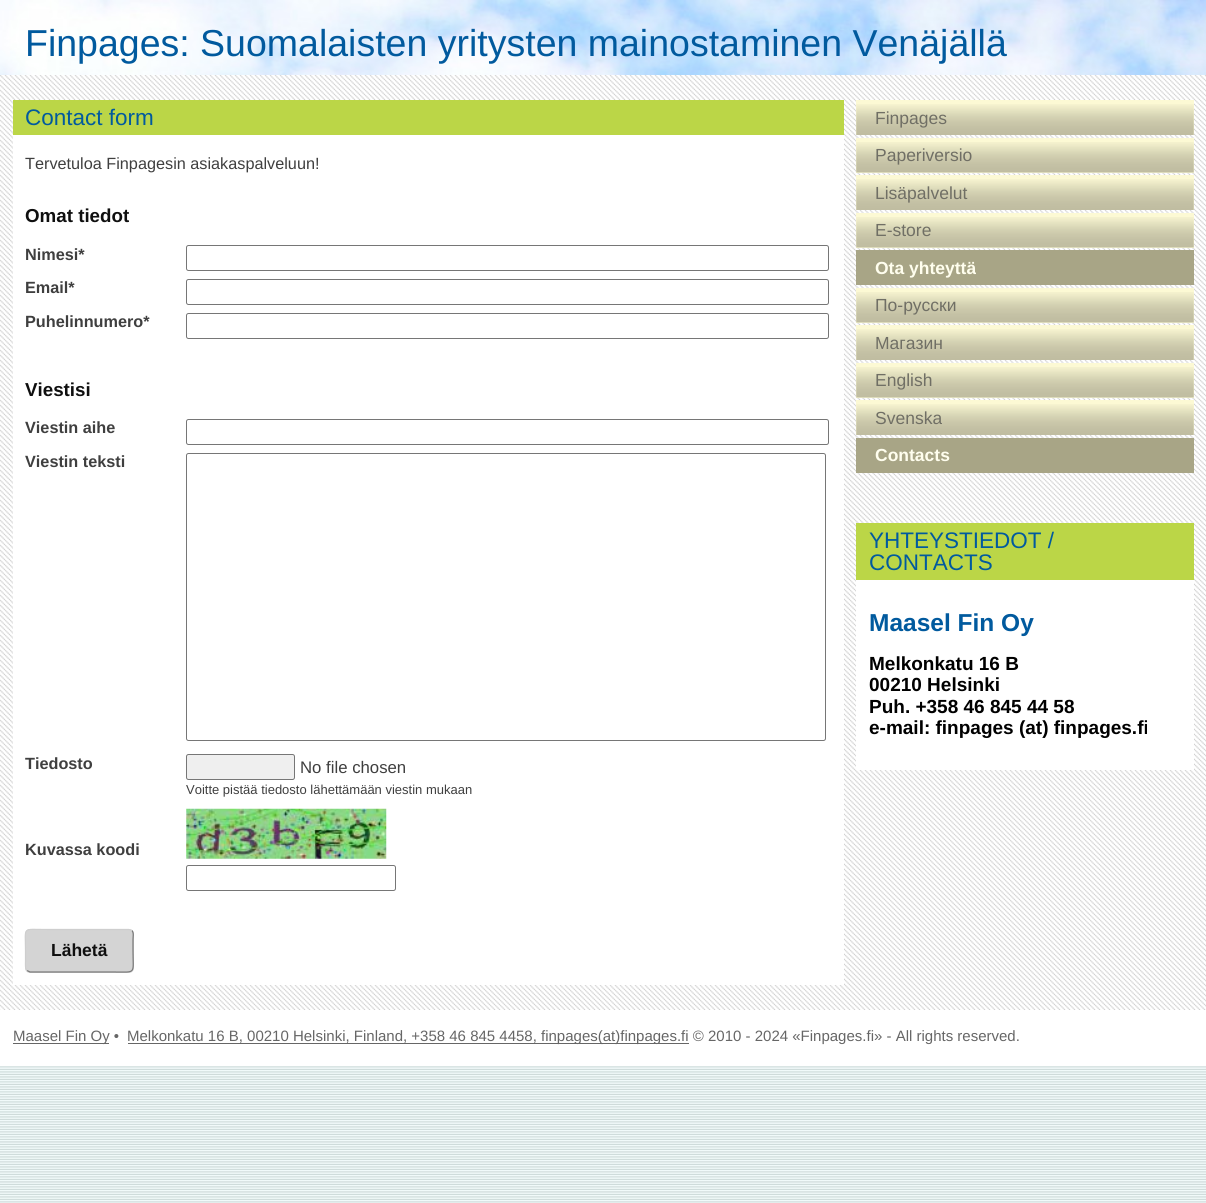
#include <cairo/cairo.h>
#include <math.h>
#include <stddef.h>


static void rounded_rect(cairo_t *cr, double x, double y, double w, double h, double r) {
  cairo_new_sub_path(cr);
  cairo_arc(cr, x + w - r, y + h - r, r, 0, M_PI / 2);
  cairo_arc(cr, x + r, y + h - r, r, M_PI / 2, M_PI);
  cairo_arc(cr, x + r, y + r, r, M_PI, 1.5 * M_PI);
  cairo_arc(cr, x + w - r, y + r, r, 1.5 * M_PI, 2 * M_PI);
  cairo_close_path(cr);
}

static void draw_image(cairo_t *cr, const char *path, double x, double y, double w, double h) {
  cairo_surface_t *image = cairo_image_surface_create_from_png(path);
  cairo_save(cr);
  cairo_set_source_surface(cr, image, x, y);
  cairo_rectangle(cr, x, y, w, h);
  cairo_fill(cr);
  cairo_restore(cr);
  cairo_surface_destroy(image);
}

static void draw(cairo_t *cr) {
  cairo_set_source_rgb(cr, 1, 1, 1);
  cairo_paint(cr);
  draw_image(cr, "images/1.png", 0, 1066, 1206, 137);
  draw_image(cr, "images/2.png", 0, 0, 1206, 75);
  draw_image(cr, "images/3.png", 0, 75, 1206, 935);
  cairo_set_source_rgb(cr, 1, 1, 1);
  cairo_rectangle(cr, 13, 135, 831, 850);
  cairo_fill(cr);
  cairo_set_source_rgb(cr, 187 / 255.0, 214 / 255.0, 71 / 255.0);
  cairo_rectangle(cr, 13, 100, 831, 35);
  cairo_fill(cr);
  rounded_rect(cr, 186.5, 245.5, 642, 25, 2);
  cairo_set_source_rgb(cr, 118 / 255.0, 118 / 255.0, 118 / 255.0);
  cairo_set_line_width(cr, 1);
  cairo_stroke(cr);
  rounded_rect(cr, 186.5, 279.5, 642, 25, 2);
  cairo_stroke(cr);
  rounded_rect(cr, 186.5, 313.5, 642, 25, 2);
  cairo_stroke(cr);
  rounded_rect(cr, 186.5, 419.5, 642, 25, 2);
  cairo_stroke(cr);
  rounded_rect(cr, 186.5, 453.5, 639, 287, 2);
  cairo_stroke(cr);
  cairo_set_source_rgb(cr, 239 / 255.0, 239 / 255.0, 239 / 255.0);
  rounded_rect(cr, 186.5, 754.5, 108, 25, 2);
  cairo_fill_preserve(cr);
  cairo_set_source_rgb(cr, 118 / 255.0, 118 / 255.0, 118 / 255.0);
  cairo_stroke(cr);
  draw_image(cr, "images/4.png", 186, 808, 201, 51);
  rounded_rect(cr, 186.5, 865.5, 209, 25, 2);
  cairo_stroke(cr);
  cairo_set_source_rgb(cr, 212 / 255.0, 212 / 255.0, 212 / 255.0);
  rounded_rect(cr, 25, 929, 109, 44, 5);
  cairo_fill(cr);
  cairo_new_path(cr);
  cairo_move_to(cr, 132, 930.5);
  cairo_curve_to(cr, 134, 933, 133, 937, 133, 939.5);
  cairo_line_to(cr, 133, 950.5);
  cairo_curve_to(cr, 133, 975, 137, 972, 112.5, 972);
  cairo_line_to(cr, 30, 972);
  cairo_line_to(cr, 27, 970.5);
  cairo_set_source_rgb(cr, 119 / 255.0, 119 / 255.0, 119 / 255.0);
  cairo_set_line_width(cr, 1.2);
  cairo_stroke(cr);
  cairo_new_path(cr);
  cairo_move_to(cr, 27, 970.5);
  cairo_curve_to(cr, 25, 968.5, 25.5, 964.5, 25.5, 962);
  cairo_line_to(cr, 25.5, 950.5);
  cairo_curve_to(cr, 25.5, 926, 21.5, 929.5, 46.5, 929.5);
  cairo_line_to(cr, 129, 929.5);
  cairo_line_to(cr, 132, 930.5);
  cairo_set_source_rgb(cr, 206 / 255.0, 206 / 255.0, 206 / 255.0);
  cairo_stroke(cr);
  cairo_set_source_rgb(cr, 252 / 255.0, 249 / 255.0, 212 / 255.0);
  cairo_rectangle(cr, 856, 100, 338, 35);
  cairo_fill(cr);
  draw_image(cr, "images/5.png", 856, 104, 338, 31);
  cairo_rectangle(cr, 856, 138, 338, 35);
  cairo_fill(cr);
  draw_image(cr, "images/6.png", 856, 142, 338, 31);
  cairo_rectangle(cr, 856, 175, 338, 35);
  cairo_fill(cr);
  draw_image(cr, "images/5.png", 856, 179, 338, 31);
  cairo_rectangle(cr, 856, 213, 338, 35);
  cairo_fill(cr);
  draw_image(cr, "images/6.png", 856, 217, 338, 31);
  cairo_set_source_rgb(cr, 168 / 255.0, 165 / 255.0, 134 / 255.0);
  cairo_rectangle(cr, 856, 250, 338, 35);
  cairo_fill(cr);
  cairo_set_source_rgb(cr, 252 / 255.0, 249 / 255.0, 212 / 255.0);
  cairo_rectangle(cr, 856, 288, 338, 35);
  cairo_fill(cr);
  draw_image(cr, "images/7.png", 856, 292, 338, 31);
  cairo_rectangle(cr, 856, 325, 338, 35);
  cairo_fill(cr);
  draw_image(cr, "images/5.png", 856, 329, 338, 31);
  cairo_rectangle(cr, 856, 363, 338, 35);
  cairo_fill(cr);
  draw_image(cr, "images/6.png", 856, 367, 338, 31);
  cairo_rectangle(cr, 856, 400, 338, 35);
  cairo_fill(cr);
  draw_image(cr, "images/5.png", 856, 404, 338, 31);
  cairo_set_source_rgb(cr, 168 / 255.0, 165 / 255.0, 134 / 255.0);
  cairo_rectangle(cr, 856, 438, 338, 35);
  cairo_fill(cr);
  cairo_set_source_rgb(cr, 1, 1, 1);
  cairo_rectangle(cr, 856, 580, 338, 190);
  cairo_fill(cr);
  cairo_set_source_rgb(cr, 187 / 255.0, 214 / 255.0, 71 / 255.0);
  cairo_rectangle(cr, 856, 523, 338, 57);
  cairo_fill(cr);
  cairo_set_source_rgb(cr, 102 / 255.0, 102 / 255.0, 102 / 255.0);
  cairo_rectangle(cr, 13, 1043, 96, 1);
  cairo_fill(cr);
  cairo_rectangle(cr, 128, 1043, 561, 1);
  cairo_fill(cr);
  cairo_select_font_face(cr, "Liberation Sans", CAIRO_FONT_SLANT_NORMAL, CAIRO_FONT_WEIGHT_NORMAL);
  cairo_set_font_size(cr, 37.5);
  cairo_set_source_rgb(cr, 1 / 255.0, 90 / 255.0, 158 / 255.0);
  cairo_move_to(cr, 25, 56);
  cairo_show_text(cr, "Finpages: Suomalaisten yritysten mainostaminen Venäjällä");
  cairo_set_font_size(cr, 22.5);
  cairo_move_to(cr, 25, 125);
  cairo_show_text(cr, "Contact form");
  cairo_set_font_size(cr, 16.25);
  cairo_set_source_rgb(cr, 63 / 255.0, 63 / 255.0, 63 / 255.0);
  cairo_move_to(cr, 25, 169);
  cairo_show_text(cr, "Tervetuloa Finpagesin asiakaspalveluun!");
  cairo_select_font_face(cr, "Liberation Sans", CAIRO_FONT_SLANT_NORMAL, CAIRO_FONT_WEIGHT_BOLD);
  cairo_set_font_size(cr, 18.75);
  cairo_set_source_rgb(cr, 15 / 255.0, 15 / 255.0, 15 / 255.0);
  cairo_move_to(cr, 25, 222);
  cairo_show_text(cr, "Omat tiedot");
  cairo_set_font_size(cr, 16.25);
  cairo_set_source_rgb(cr, 63 / 255.0, 63 / 255.0, 63 / 255.0);
  cairo_move_to(cr, 25, 260);
  cairo_show_text(cr, "Nimesi*");
  cairo_move_to(cr, 25, 293);
  cairo_show_text(cr, "Email*");
  cairo_move_to(cr, 25, 327);
  cairo_show_text(cr, "Puhelinnumero*");
  cairo_set_font_size(cr, 18.75);
  cairo_set_source_rgb(cr, 15 / 255.0, 15 / 255.0, 15 / 255.0);
  cairo_move_to(cr, 25, 396);
  cairo_show_text(cr, "Viestisi");
  cairo_set_font_size(cr, 16.25);
  cairo_set_source_rgb(cr, 63 / 255.0, 63 / 255.0, 63 / 255.0);
  cairo_move_to(cr, 25, 433);
  cairo_show_text(cr, "Viestin aihe");
  cairo_move_to(cr, 25, 467);
  cairo_show_text(cr, "Viestin teksti");
  cairo_move_to(cr, 25, 769);
  cairo_show_text(cr, "Tiedosto");
  cairo_select_font_face(cr, "Liberation Sans", CAIRO_FONT_SLANT_NORMAL, CAIRO_FONT_WEIGHT_NORMAL);
  cairo_set_font_size(cr, 16.75);
  cairo_move_to(cr, 300, 773);
  cairo_show_text(cr, "No file chosen");
  cairo_set_font_size(cr, 13);
  cairo_move_to(cr, 186, 794);
  cairo_show_text(cr, "Voitte pistää tiedosto lähettämään viestin mukaan");
  cairo_select_font_face(cr, "Liberation Sans", CAIRO_FONT_SLANT_NORMAL, CAIRO_FONT_WEIGHT_BOLD);
  cairo_set_font_size(cr, 16.25);
  cairo_move_to(cr, 25, 855);
  cairo_show_text(cr, "Kuvassa koodi");
  cairo_set_font_size(cr, 17.5);
  cairo_set_source_rgb(cr, 15 / 255.0, 15 / 255.0, 15 / 255.0);
  cairo_move_to(cr, 51, 956);
  cairo_show_text(cr, "Lähetä");
  cairo_select_font_face(cr, "Liberation Sans", CAIRO_FONT_SLANT_NORMAL, CAIRO_FONT_WEIGHT_NORMAL);
  cairo_set_source_rgb(cr, 112 / 255.0, 111 / 255.0, 101 / 255.0);
  cairo_move_to(cr, 875, 124);
  cairo_show_text(cr, "Finpages");
  cairo_move_to(cr, 875, 161);
  cairo_show_text(cr, "Paperiversio");
  cairo_move_to(cr, 875, 199);
  cairo_show_text(cr, "Lisäpalvelut");
  cairo_move_to(cr, 875, 236);
  cairo_show_text(cr, "E-store");
  cairo_select_font_face(cr, "Liberation Sans", CAIRO_FONT_SLANT_NORMAL, CAIRO_FONT_WEIGHT_BOLD);
  cairo_set_source_rgb(cr, 1, 254 / 255.0, 238 / 255.0);
  cairo_move_to(cr, 875, 274);
  cairo_show_text(cr, "Ota yhteyttä");
  cairo_select_font_face(cr, "Liberation Sans", CAIRO_FONT_SLANT_NORMAL, CAIRO_FONT_WEIGHT_NORMAL);
  cairo_set_source_rgb(cr, 112 / 255.0, 111 / 255.0, 101 / 255.0);
  cairo_move_to(cr, 875, 311);
  cairo_show_text(cr, "По-русски");
  cairo_move_to(cr, 875, 349);
  cairo_show_text(cr, "Магазин");
  cairo_move_to(cr, 875, 386);
  cairo_show_text(cr, "English");
  cairo_move_to(cr, 875, 424);
  cairo_show_text(cr, "Svenska");
  cairo_select_font_face(cr, "Liberation Sans", CAIRO_FONT_SLANT_NORMAL, CAIRO_FONT_WEIGHT_BOLD);
  cairo_set_source_rgb(cr, 1, 254 / 255.0, 238 / 255.0);
  cairo_move_to(cr, 875, 461);
  cairo_show_text(cr, "Contacts");
  cairo_select_font_face(cr, "Liberation Sans", CAIRO_FONT_SLANT_NORMAL, CAIRO_FONT_WEIGHT_NORMAL);
  cairo_set_font_size(cr, 22.5);
  cairo_set_source_rgb(cr, 1 / 255.0, 90 / 255.0, 158 / 255.0);
  cairo_move_to(cr, 869, 548);
  cairo_show_text(cr, "YHTEYSTIEDOT /");
  cairo_move_to(cr, 869, 570);
  cairo_show_text(cr, "CONTACTS");
  cairo_select_font_face(cr, "Liberation Sans", CAIRO_FONT_SLANT_NORMAL, CAIRO_FONT_WEIGHT_BOLD);
  cairo_set_font_size(cr, 24.5);
  cairo_move_to(cr, 869, 631);
  cairo_show_text(cr, "Maasel Fin Oy");
  cairo_set_font_size(cr, 19);
  cairo_set_source_rgb(cr, 0, 0, 0);
  cairo_move_to(cr, 869, 670);
  cairo_show_text(cr, "Melkonkatu 16 B");
  cairo_move_to(cr, 869, 691);
  cairo_show_text(cr, "00210 Helsinki");
  cairo_move_to(cr, 869, 713);
  cairo_show_text(cr, "Puh. +358 46 845 44 58");
  cairo_move_to(cr, 869, 734);
  cairo_show_text(cr, "e-mail: finpages (at) finpages.fi");
  cairo_select_font_face(cr, "Liberation Sans", CAIRO_FONT_SLANT_NORMAL, CAIRO_FONT_WEIGHT_NORMAL);
  cairo_set_font_size(cr, 15);
  cairo_set_source_rgb(cr, 102 / 255.0, 102 / 255.0, 102 / 255.0);
  cairo_move_to(cr, 13, 1041);
  cairo_show_text(cr, "Maasel Fin Oy •");
  cairo_move_to(cr, 127, 1041);
  cairo_show_text(cr, "Melkonkatu 16 B, 00210 Helsinki, Finland, +358 46 845 4458, finpages(at)finpages.fi © 2010 - 2024 «Finpages.fi» - All rights reserved.");
}

int main(void) {
  cairo_surface_t *surface = cairo_image_surface_create(CAIRO_FORMAT_RGB24, 1206, 1203);
  cairo_t *cr = cairo_create(surface);
  cairo_font_options_t *options = cairo_font_options_create();
  cairo_font_options_set_hint_metrics(options, CAIRO_HINT_METRICS_OFF);
  cairo_font_options_set_hint_style(options, CAIRO_HINT_STYLE_NONE);
  cairo_set_font_options(cr, options);
  cairo_set_miter_limit(cr, 4);
  draw(cr);
  cairo_surface_write_to_png(surface, "out.png");
  cairo_font_options_destroy(options);
  cairo_destroy(cr);
  cairo_surface_destroy(surface);
  return 0;
}
